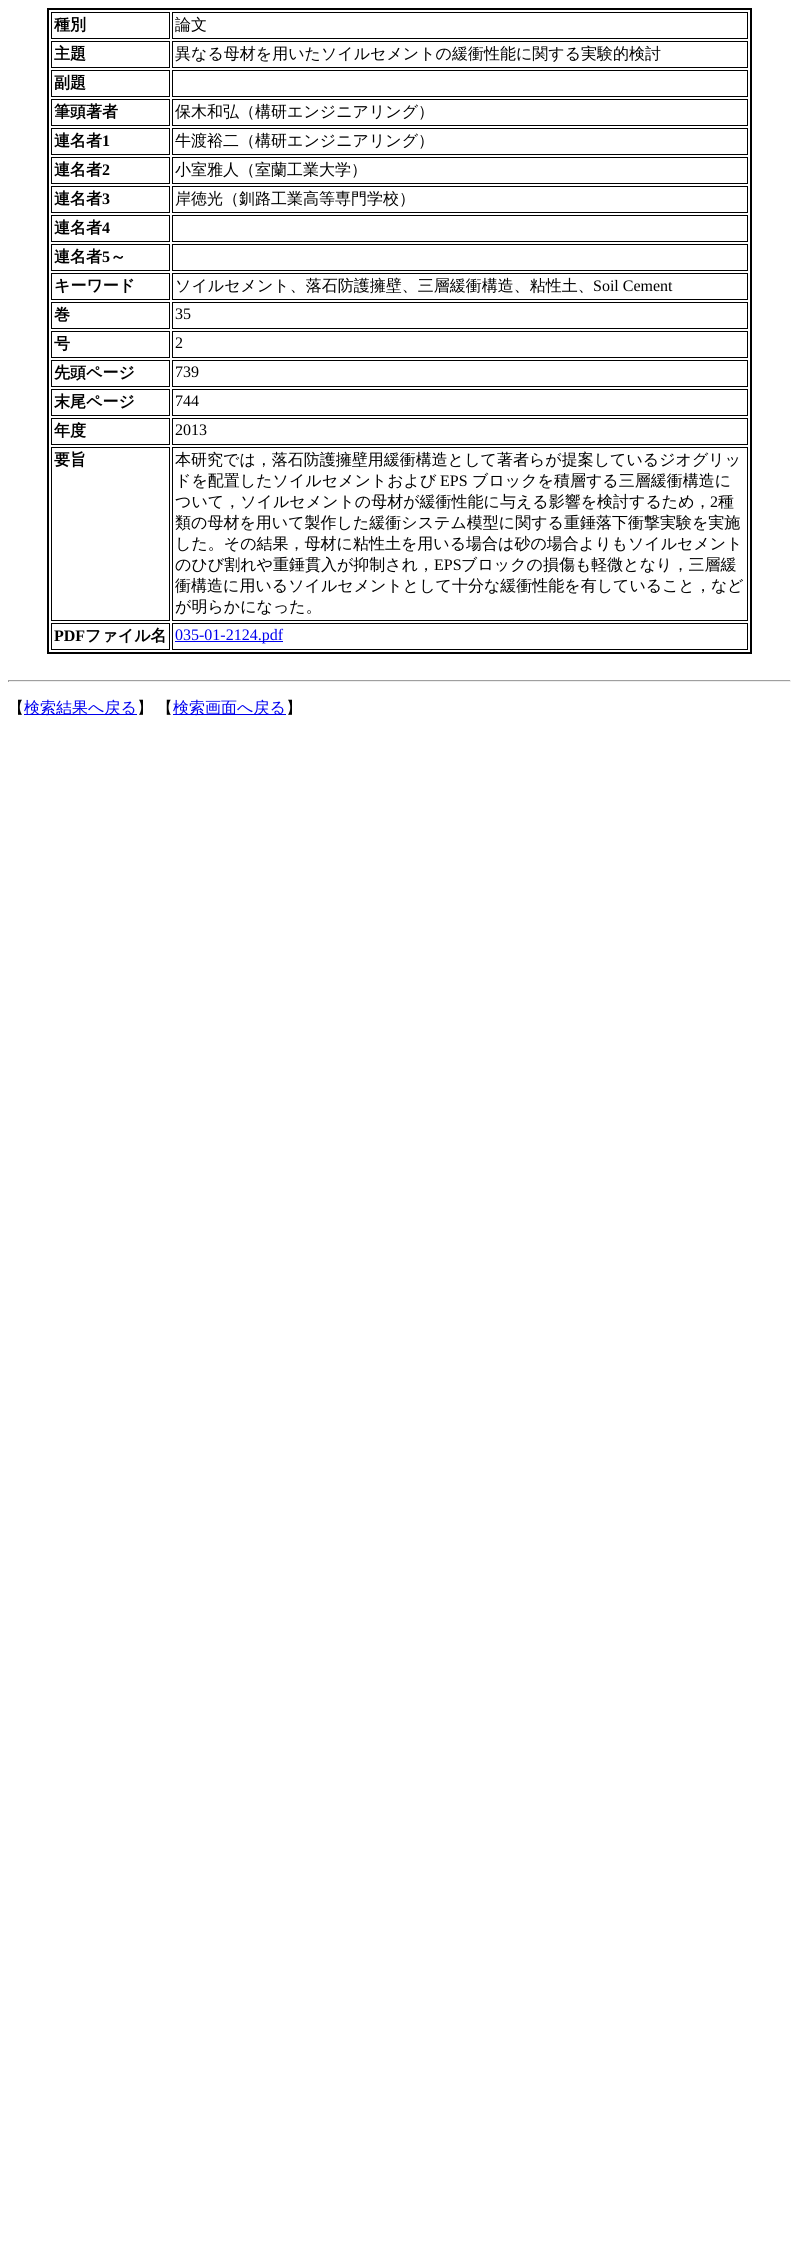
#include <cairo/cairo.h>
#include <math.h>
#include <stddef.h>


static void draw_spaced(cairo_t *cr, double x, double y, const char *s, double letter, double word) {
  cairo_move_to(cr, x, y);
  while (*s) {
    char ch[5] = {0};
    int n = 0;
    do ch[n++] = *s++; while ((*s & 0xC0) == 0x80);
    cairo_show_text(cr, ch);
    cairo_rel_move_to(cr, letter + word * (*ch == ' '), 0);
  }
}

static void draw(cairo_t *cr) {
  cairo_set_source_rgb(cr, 1, 1, 1);
  cairo_paint(cr);
  cairo_rectangle(cr, 48, 9, 703, 644);
  cairo_set_source_rgb(cr, 0, 0, 0);
  cairo_stroke(cr);
  cairo_rectangle(cr, 51.5, 12.5, 118, 26);
  cairo_set_line_width(cr, 1);
  cairo_stroke(cr);
  cairo_rectangle(cr, 172.5, 12.5, 575, 26);
  cairo_stroke(cr);
  cairo_rectangle(cr, 51.5, 41.5, 118, 26);
  cairo_stroke(cr);
  cairo_rectangle(cr, 172.5, 41.5, 575, 26);
  cairo_stroke(cr);
  cairo_rectangle(cr, 51.5, 70.5, 118, 26);
  cairo_stroke(cr);
  cairo_rectangle(cr, 172.5, 70.5, 575, 26);
  cairo_stroke(cr);
  cairo_rectangle(cr, 51.5, 99.5, 118, 26);
  cairo_stroke(cr);
  cairo_rectangle(cr, 172.5, 99.5, 575, 26);
  cairo_stroke(cr);
  cairo_rectangle(cr, 51.5, 128.5, 118, 26);
  cairo_stroke(cr);
  cairo_rectangle(cr, 172.5, 128.5, 575, 26);
  cairo_stroke(cr);
  cairo_rectangle(cr, 51.5, 157.5, 118, 26);
  cairo_stroke(cr);
  cairo_rectangle(cr, 172.5, 157.5, 575, 26);
  cairo_stroke(cr);
  cairo_rectangle(cr, 51.5, 186.5, 118, 26);
  cairo_stroke(cr);
  cairo_rectangle(cr, 172.5, 186.5, 575, 26);
  cairo_stroke(cr);
  cairo_rectangle(cr, 51.5, 215.5, 118, 26);
  cairo_stroke(cr);
  cairo_rectangle(cr, 172.5, 215.5, 575, 26);
  cairo_stroke(cr);
  cairo_rectangle(cr, 51.5, 244.5, 118, 26);
  cairo_stroke(cr);
  cairo_rectangle(cr, 172.5, 244.5, 575, 26);
  cairo_stroke(cr);
  cairo_rectangle(cr, 51.5, 273.5, 118, 26);
  cairo_stroke(cr);
  cairo_rectangle(cr, 172.5, 273.5, 575, 26);
  cairo_stroke(cr);
  cairo_rectangle(cr, 51.5, 302.5, 118, 26);
  cairo_stroke(cr);
  cairo_rectangle(cr, 172.5, 302.5, 575, 26);
  cairo_stroke(cr);
  cairo_rectangle(cr, 51.5, 331.5, 118, 26);
  cairo_stroke(cr);
  cairo_rectangle(cr, 172.5, 331.5, 575, 26);
  cairo_stroke(cr);
  cairo_rectangle(cr, 51.5, 360.5, 118, 26);
  cairo_stroke(cr);
  cairo_rectangle(cr, 172.5, 360.5, 575, 26);
  cairo_stroke(cr);
  cairo_rectangle(cr, 51.5, 389.5, 118, 26);
  cairo_stroke(cr);
  cairo_rectangle(cr, 172.5, 389.5, 575, 26);
  cairo_stroke(cr);
  cairo_rectangle(cr, 51.5, 418.5, 118, 26);
  cairo_stroke(cr);
  cairo_rectangle(cr, 172.5, 418.5, 575, 26);
  cairo_stroke(cr);
  cairo_rectangle(cr, 51.5, 447.5, 118, 173);
  cairo_stroke(cr);
  cairo_rectangle(cr, 172.5, 447.5, 575, 173);
  cairo_stroke(cr);
  cairo_rectangle(cr, 51.5, 623.5, 118, 26);
  cairo_stroke(cr);
  cairo_rectangle(cr, 172.5, 623.5, 575, 26);
  cairo_stroke(cr);
  cairo_set_source_rgb(cr, 0, 0, 238 / 255.0);
  cairo_rectangle(cr, 175, 641, 108, 1);
  cairo_fill(cr);
  cairo_set_source_rgb(cr, 159 / 255.0, 159 / 255.0, 159 / 255.0);
  cairo_rectangle(cr, 8, 680, 783, 1);
  cairo_fill(cr);
  cairo_set_source_rgb(cr, 238 / 255.0, 238 / 255.0, 238 / 255.0);
  cairo_rectangle(cr, 790, 680, 1, 2);
  cairo_fill(cr);
  cairo_rectangle(cr, 8, 681, 783, 1);
  cairo_fill(cr);
  cairo_set_source_rgb(cr, 159 / 255.0, 159 / 255.0, 159 / 255.0);
  cairo_rectangle(cr, 8, 680, 1, 2);
  cairo_fill(cr);
  cairo_set_source_rgb(cr, 0, 0, 238 / 255.0);
  cairo_rectangle(cr, 24, 714, 113, 1);
  cairo_fill(cr);
  cairo_rectangle(cr, 173, 714, 113, 1);
  cairo_fill(cr);
  cairo_select_font_face(cr, "WenQuanYi Zen Hei", CAIRO_FONT_SLANT_NORMAL, CAIRO_FONT_WEIGHT_BOLD);
  cairo_set_font_size(cr, 16);
  cairo_set_source_rgb(cr, 0, 0, 0);
  cairo_move_to(cr, 54, 30);
  cairo_show_text(cr, "種別");
  cairo_select_font_face(cr, "WenQuanYi Zen Hei Medium", CAIRO_FONT_SLANT_NORMAL, CAIRO_FONT_WEIGHT_NORMAL);
  cairo_move_to(cr, 175, 30);
  cairo_show_text(cr, "論文");
  cairo_select_font_face(cr, "WenQuanYi Zen Hei", CAIRO_FONT_SLANT_NORMAL, CAIRO_FONT_WEIGHT_BOLD);
  cairo_move_to(cr, 54, 59);
  cairo_show_text(cr, "主題");
  cairo_select_font_face(cr, "WenQuanYi Zen Hei Medium", CAIRO_FONT_SLANT_NORMAL, CAIRO_FONT_WEIGHT_NORMAL);
  cairo_move_to(cr, 175, 59);
  cairo_show_text(cr, "異なる母材を用いたソイルセメントの緩衝性能に関する実験的検討");
  cairo_select_font_face(cr, "WenQuanYi Zen Hei", CAIRO_FONT_SLANT_NORMAL, CAIRO_FONT_WEIGHT_BOLD);
  cairo_move_to(cr, 54, 88);
  cairo_show_text(cr, "副題");
  cairo_move_to(cr, 54, 117);
  cairo_show_text(cr, "筆頭著者");
  cairo_select_font_face(cr, "WenQuanYi Zen Hei Medium", CAIRO_FONT_SLANT_NORMAL, CAIRO_FONT_WEIGHT_NORMAL);
  cairo_move_to(cr, 175, 117);
  cairo_show_text(cr, "保木和弘（構研エンジニアリング）");
  cairo_select_font_face(cr, "WenQuanYi Zen Hei", CAIRO_FONT_SLANT_NORMAL, CAIRO_FONT_WEIGHT_BOLD);
  cairo_move_to(cr, 54, 146);
  cairo_show_text(cr, "連名者");
  cairo_select_font_face(cr, "Liberation Serif", CAIRO_FONT_SLANT_NORMAL, CAIRO_FONT_WEIGHT_BOLD);
  cairo_move_to(cr, 102, 146);
  cairo_show_text(cr, "1");
  cairo_select_font_face(cr, "WenQuanYi Zen Hei Medium", CAIRO_FONT_SLANT_NORMAL, CAIRO_FONT_WEIGHT_NORMAL);
  cairo_move_to(cr, 175, 146);
  cairo_show_text(cr, "牛渡裕二（構研エンジニアリング）");
  cairo_select_font_face(cr, "WenQuanYi Zen Hei", CAIRO_FONT_SLANT_NORMAL, CAIRO_FONT_WEIGHT_BOLD);
  cairo_move_to(cr, 54, 175);
  cairo_show_text(cr, "連名者");
  cairo_select_font_face(cr, "Liberation Serif", CAIRO_FONT_SLANT_NORMAL, CAIRO_FONT_WEIGHT_BOLD);
  cairo_move_to(cr, 102, 175);
  cairo_show_text(cr, "2");
  cairo_select_font_face(cr, "WenQuanYi Zen Hei Medium", CAIRO_FONT_SLANT_NORMAL, CAIRO_FONT_WEIGHT_NORMAL);
  cairo_move_to(cr, 175, 175);
  cairo_show_text(cr, "小室雅人（室蘭工業大学）");
  cairo_select_font_face(cr, "WenQuanYi Zen Hei", CAIRO_FONT_SLANT_NORMAL, CAIRO_FONT_WEIGHT_BOLD);
  cairo_move_to(cr, 54, 204);
  cairo_show_text(cr, "連名者");
  cairo_select_font_face(cr, "Liberation Serif", CAIRO_FONT_SLANT_NORMAL, CAIRO_FONT_WEIGHT_BOLD);
  cairo_move_to(cr, 102, 204);
  cairo_show_text(cr, "3");
  cairo_select_font_face(cr, "WenQuanYi Zen Hei Medium", CAIRO_FONT_SLANT_NORMAL, CAIRO_FONT_WEIGHT_NORMAL);
  cairo_move_to(cr, 175, 204);
  cairo_show_text(cr, "岸徳光（釧路工業高等専門学校）");
  cairo_select_font_face(cr, "WenQuanYi Zen Hei", CAIRO_FONT_SLANT_NORMAL, CAIRO_FONT_WEIGHT_BOLD);
  cairo_move_to(cr, 54, 233);
  cairo_show_text(cr, "連名者");
  cairo_select_font_face(cr, "Liberation Serif", CAIRO_FONT_SLANT_NORMAL, CAIRO_FONT_WEIGHT_BOLD);
  cairo_move_to(cr, 102, 233);
  cairo_show_text(cr, "4");
  cairo_select_font_face(cr, "WenQuanYi Zen Hei", CAIRO_FONT_SLANT_NORMAL, CAIRO_FONT_WEIGHT_BOLD);
  cairo_move_to(cr, 54, 262);
  cairo_show_text(cr, "連名者");
  cairo_select_font_face(cr, "Liberation Serif", CAIRO_FONT_SLANT_NORMAL, CAIRO_FONT_WEIGHT_BOLD);
  cairo_move_to(cr, 102, 262);
  cairo_show_text(cr, "5");
  cairo_select_font_face(cr, "WenQuanYi Zen Hei", CAIRO_FONT_SLANT_NORMAL, CAIRO_FONT_WEIGHT_BOLD);
  cairo_move_to(cr, 110, 262);
  cairo_show_text(cr, "～");
  cairo_move_to(cr, 54, 291);
  cairo_show_text(cr, "キーワード");
  cairo_select_font_face(cr, "WenQuanYi Zen Hei Medium", CAIRO_FONT_SLANT_NORMAL, CAIRO_FONT_WEIGHT_NORMAL);
  cairo_move_to(cr, 175, 291);
  cairo_show_text(cr, "ソイルセメント、落石防護擁壁、三層緩衝構造、粘性土、");
  cairo_select_font_face(cr, "Liberation Serif", CAIRO_FONT_SLANT_NORMAL, CAIRO_FONT_WEIGHT_NORMAL);
  cairo_move_to(cr, 593, 291);
  cairo_show_text(cr, "Soil Cement");
  cairo_select_font_face(cr, "WenQuanYi Zen Hei", CAIRO_FONT_SLANT_NORMAL, CAIRO_FONT_WEIGHT_BOLD);
  cairo_move_to(cr, 54, 320);
  cairo_show_text(cr, "巻");
  cairo_select_font_face(cr, "Liberation Serif", CAIRO_FONT_SLANT_NORMAL, CAIRO_FONT_WEIGHT_NORMAL);
  cairo_move_to(cr, 175, 319);
  cairo_show_text(cr, "35");
  cairo_select_font_face(cr, "WenQuanYi Zen Hei", CAIRO_FONT_SLANT_NORMAL, CAIRO_FONT_WEIGHT_BOLD);
  cairo_move_to(cr, 54, 349);
  cairo_show_text(cr, "号");
  cairo_select_font_face(cr, "Liberation Serif", CAIRO_FONT_SLANT_NORMAL, CAIRO_FONT_WEIGHT_NORMAL);
  cairo_move_to(cr, 175, 348);
  cairo_show_text(cr, "2");
  cairo_select_font_face(cr, "WenQuanYi Zen Hei", CAIRO_FONT_SLANT_NORMAL, CAIRO_FONT_WEIGHT_BOLD);
  cairo_move_to(cr, 54, 378);
  cairo_show_text(cr, "先頭ページ");
  cairo_select_font_face(cr, "Liberation Serif", CAIRO_FONT_SLANT_NORMAL, CAIRO_FONT_WEIGHT_NORMAL);
  cairo_move_to(cr, 175, 377);
  cairo_show_text(cr, "739");
  cairo_select_font_face(cr, "WenQuanYi Zen Hei", CAIRO_FONT_SLANT_NORMAL, CAIRO_FONT_WEIGHT_BOLD);
  cairo_move_to(cr, 54, 407);
  cairo_show_text(cr, "末尾ページ");
  cairo_select_font_face(cr, "Liberation Serif", CAIRO_FONT_SLANT_NORMAL, CAIRO_FONT_WEIGHT_NORMAL);
  cairo_move_to(cr, 175, 406);
  cairo_show_text(cr, "744");
  cairo_select_font_face(cr, "WenQuanYi Zen Hei", CAIRO_FONT_SLANT_NORMAL, CAIRO_FONT_WEIGHT_BOLD);
  cairo_move_to(cr, 54, 436);
  cairo_show_text(cr, "年度");
  cairo_select_font_face(cr, "Liberation Serif", CAIRO_FONT_SLANT_NORMAL, CAIRO_FONT_WEIGHT_NORMAL);
  cairo_move_to(cr, 175, 435);
  cairo_show_text(cr, "2013");
  cairo_select_font_face(cr, "WenQuanYi Zen Hei", CAIRO_FONT_SLANT_NORMAL, CAIRO_FONT_WEIGHT_BOLD);
  cairo_move_to(cr, 54, 465);
  cairo_show_text(cr, "要旨");
  cairo_select_font_face(cr, "WenQuanYi Zen Hei Medium", CAIRO_FONT_SLANT_NORMAL, CAIRO_FONT_WEIGHT_NORMAL);
  cairo_move_to(cr, 175, 465);
  cairo_show_text(cr, "本研究では，落石防護擁壁用緩衝構造として著者らが提案しているジオグリッ");
  cairo_move_to(cr, 175, 486);
  cairo_show_text(cr, "ドを配置したソイルセメントおよび");
  cairo_select_font_face(cr, "Liberation Serif", CAIRO_FONT_SLANT_NORMAL, CAIRO_FONT_WEIGHT_NORMAL);
  cairo_move_to(cr, 440, 486);
  cairo_show_text(cr, "EPS");
  cairo_select_font_face(cr, "WenQuanYi Zen Hei Medium", CAIRO_FONT_SLANT_NORMAL, CAIRO_FONT_WEIGHT_NORMAL);
  cairo_move_to(cr, 472, 486);
  cairo_show_text(cr, "ブロックを積層する三層緩衝構造に");
  cairo_move_to(cr, 175, 507);
  cairo_show_text(cr, "ついて，ソイルセメントの母材が緩衝性能に与える影響を検討するため，");
  cairo_select_font_face(cr, "Liberation Serif", CAIRO_FONT_SLANT_NORMAL, CAIRO_FONT_WEIGHT_NORMAL);
  cairo_move_to(cr, 710, 507);
  cairo_show_text(cr, "2");
  cairo_select_font_face(cr, "WenQuanYi Zen Hei Medium", CAIRO_FONT_SLANT_NORMAL, CAIRO_FONT_WEIGHT_NORMAL);
  cairo_move_to(cr, 718, 507);
  cairo_show_text(cr, "種");
  cairo_move_to(cr, 175, 528);
  cairo_show_text(cr, "類の母材を用いて製作した緩衝システム模型に関する重錘落下衝撃実験を実施");
  cairo_move_to(cr, 175, 549);
  cairo_show_text(cr, "した。その結果，母材に粘性土を用いる場合は砂の場合よりもソイルセメント");
  cairo_move_to(cr, 175, 570);
  cairo_show_text(cr, "のひび割れや重錘貫入が抑制され，");
  cairo_select_font_face(cr, "Liberation Serif", CAIRO_FONT_SLANT_NORMAL, CAIRO_FONT_WEIGHT_NORMAL);
  cairo_move_to(cr, 434, 570);
  cairo_show_text(cr, "EPS");
  cairo_select_font_face(cr, "WenQuanYi Zen Hei Medium", CAIRO_FONT_SLANT_NORMAL, CAIRO_FONT_WEIGHT_NORMAL);
  cairo_move_to(cr, 461, 570);
  cairo_show_text(cr, "ブロックの損傷も軽微となり，三層緩");
  cairo_move_to(cr, 175, 591);
  cairo_show_text(cr, "衝構造に用いるソイルセメントとして十分な緩衝性能を有していること，など");
  cairo_move_to(cr, 175, 612);
  cairo_show_text(cr, "が明らかになった。");
  cairo_select_font_face(cr, "Liberation Serif", CAIRO_FONT_SLANT_NORMAL, CAIRO_FONT_WEIGHT_BOLD);
  cairo_move_to(cr, 54, 641);
  cairo_show_text(cr, "PDF");
  cairo_select_font_face(cr, "WenQuanYi Zen Hei", CAIRO_FONT_SLANT_NORMAL, CAIRO_FONT_WEIGHT_BOLD);
  cairo_move_to(cr, 85, 641);
  cairo_show_text(cr, "ファイル名");
  cairo_select_font_face(cr, "Liberation Serif", CAIRO_FONT_SLANT_NORMAL, CAIRO_FONT_WEIGHT_NORMAL);
  cairo_set_source_rgb(cr, 0, 0, 238 / 255.0);
  cairo_move_to(cr, 175, 640);
  cairo_show_text(cr, "035-01-2124.pdf");
  cairo_select_font_face(cr, "WenQuanYi Zen Hei Medium", CAIRO_FONT_SLANT_NORMAL, CAIRO_FONT_WEIGHT_NORMAL);
  cairo_set_source_rgb(cr, 0, 0, 0);
  cairo_move_to(cr, 8, 713);
  cairo_show_text(cr, "【");
  cairo_set_source_rgb(cr, 0, 0, 238 / 255.0);
  cairo_move_to(cr, 24, 713);
  cairo_show_text(cr, "検索結果へ戻る");
  cairo_set_source_rgb(cr, 0, 0, 0);
  draw_spaced(cr, 137, 713, "】 【", 0, -1);
  cairo_set_source_rgb(cr, 0, 0, 238 / 255.0);
  cairo_move_to(cr, 173, 713);
  cairo_show_text(cr, "検索画面へ戻る");
  cairo_set_source_rgb(cr, 0, 0, 0);
  cairo_move_to(cr, 286, 713);
  cairo_show_text(cr, "】");
}

int main(void) {
  cairo_surface_t *surface = cairo_image_surface_create(CAIRO_FORMAT_RGB24, 799, 2245);
  cairo_t *cr = cairo_create(surface);
  cairo_font_options_t *options = cairo_font_options_create();
  cairo_font_options_set_hint_metrics(options, CAIRO_HINT_METRICS_OFF);
  cairo_font_options_set_hint_style(options, CAIRO_HINT_STYLE_NONE);
  cairo_set_font_options(cr, options);
  cairo_set_miter_limit(cr, 4);
  draw(cr);
  cairo_surface_write_to_png(surface, "out.png");
  cairo_font_options_destroy(options);
  cairo_destroy(cr);
  cairo_surface_destroy(surface);
  return 0;
}
